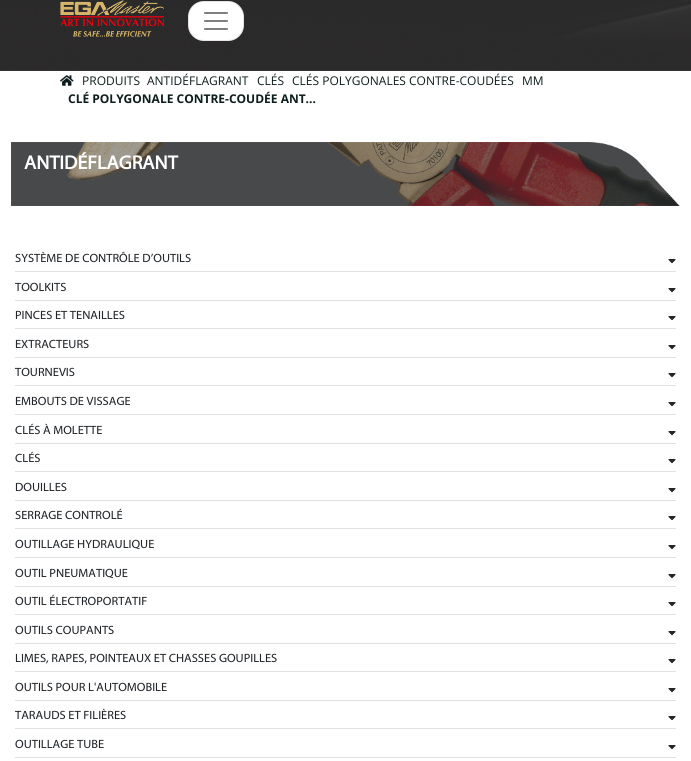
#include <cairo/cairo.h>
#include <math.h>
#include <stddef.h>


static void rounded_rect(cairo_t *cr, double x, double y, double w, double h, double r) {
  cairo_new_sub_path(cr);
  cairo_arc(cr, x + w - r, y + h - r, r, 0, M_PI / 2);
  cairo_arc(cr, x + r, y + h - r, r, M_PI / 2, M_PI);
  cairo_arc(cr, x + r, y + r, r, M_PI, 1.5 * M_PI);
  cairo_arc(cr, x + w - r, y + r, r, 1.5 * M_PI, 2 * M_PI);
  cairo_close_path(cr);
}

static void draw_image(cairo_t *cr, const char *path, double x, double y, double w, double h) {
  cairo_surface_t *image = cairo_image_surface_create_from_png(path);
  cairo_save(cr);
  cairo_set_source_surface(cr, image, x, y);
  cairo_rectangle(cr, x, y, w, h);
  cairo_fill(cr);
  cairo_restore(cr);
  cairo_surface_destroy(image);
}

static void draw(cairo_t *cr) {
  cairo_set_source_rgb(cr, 1, 1, 1);
  cairo_paint(cr);
  draw_image(cr, "images/1.png", 0, 0, 691, 71);
  draw_image(cr, "images/2.png", 60, 0, 104, 37);
  cairo_set_source_rgb(cr, 1, 1, 1);
  rounded_rect(cr, 188, 1, 56, 40, 16);
  cairo_fill(cr);
  rounded_rect(cr, 188.5, 1.5, 55, 39, 15.5);
  cairo_set_source_rgba(cr, 0, 0, 0, 0.1);
  cairo_set_line_width(cr, 1);
  cairo_stroke(cr);
  draw_image(cr, "images/3.png", 204, 12, 24, 18);
  draw_image(cr, "images/4.png", 60, 75, 14, 11);
  draw_image(cr, "images/5.png", 11, 142, 669, 64);
  cairo_set_source_rgb(cr, 225 / 255.0, 225 / 255.0, 226 / 255.0);
  cairo_rectangle(cr, 15, 271, 661, 1);
  cairo_fill(cr);
  draw_image(cr, "images/6.png", 668, 259, 8, 5);
  cairo_rectangle(cr, 15, 300, 661, 1);
  cairo_fill(cr);
  draw_image(cr, "images/6.png", 668, 288, 8, 5);
  cairo_rectangle(cr, 15, 328, 661, 1);
  cairo_fill(cr);
  draw_image(cr, "images/6.png", 668, 316, 8, 5);
  cairo_rectangle(cr, 15, 357, 661, 1);
  cairo_fill(cr);
  draw_image(cr, "images/6.png", 668, 345, 8, 5);
  cairo_rectangle(cr, 15, 385, 661, 1);
  cairo_fill(cr);
  draw_image(cr, "images/6.png", 668, 373, 8, 5);
  cairo_rectangle(cr, 15, 414, 661, 1);
  cairo_fill(cr);
  draw_image(cr, "images/6.png", 668, 402, 8, 5);
  cairo_rectangle(cr, 15, 443, 661, 1);
  cairo_fill(cr);
  draw_image(cr, "images/6.png", 668, 431, 8, 5);
  cairo_rectangle(cr, 15, 471, 661, 1);
  cairo_fill(cr);
  draw_image(cr, "images/6.png", 668, 459, 8, 5);
  cairo_rectangle(cr, 15, 500, 661, 1);
  cairo_fill(cr);
  draw_image(cr, "images/6.png", 668, 488, 8, 5);
  cairo_rectangle(cr, 15, 528, 661, 1);
  cairo_fill(cr);
  draw_image(cr, "images/6.png", 668, 516, 8, 5);
  cairo_rectangle(cr, 15, 557, 661, 1);
  cairo_fill(cr);
  draw_image(cr, "images/6.png", 668, 545, 8, 5);
  cairo_rectangle(cr, 15, 586, 661, 1);
  cairo_fill(cr);
  draw_image(cr, "images/6.png", 668, 574, 8, 5);
  cairo_rectangle(cr, 15, 614, 661, 1);
  cairo_fill(cr);
  draw_image(cr, "images/6.png", 668, 602, 8, 5);
  cairo_rectangle(cr, 15, 643, 661, 1);
  cairo_fill(cr);
  draw_image(cr, "images/6.png", 668, 631, 8, 5);
  cairo_rectangle(cr, 15, 671, 661, 1);
  cairo_fill(cr);
  draw_image(cr, "images/6.png", 668, 659, 8, 5);
  cairo_rectangle(cr, 15, 700, 661, 1);
  cairo_fill(cr);
  draw_image(cr, "images/6.png", 668, 688, 8, 5);
  cairo_rectangle(cr, 15, 728, 661, 1);
  cairo_fill(cr);
  draw_image(cr, "images/6.png", 668, 716, 8, 5);
  cairo_rectangle(cr, 15, 757, 661, 1);
  cairo_fill(cr);
  draw_image(cr, "images/6.png", 668, 745, 8, 5);
  cairo_select_font_face(cr, "Open Sans", CAIRO_FONT_SLANT_NORMAL, CAIRO_FONT_WEIGHT_NORMAL);
  cairo_set_font_size(cr, 12);
  cairo_set_source_rgb(cr, 13 / 255.0, 28 / 255.0, 28 / 255.0);
  cairo_move_to(cr, 82, 85);
  cairo_show_text(cr, "PRODUITS");
  cairo_move_to(cr, 147, 85);
  cairo_show_text(cr, "ANTIDÉFLAGRANT");
  cairo_move_to(cr, 257, 85);
  cairo_show_text(cr, "CLÉS");
  cairo_move_to(cr, 292, 85);
  cairo_show_text(cr, "CLÉS POLYGONALES CONTRE-COUDÉES");
  cairo_move_to(cr, 522, 85);
  cairo_show_text(cr, "MM");
  cairo_select_font_face(cr, "Open Sans", CAIRO_FONT_SLANT_NORMAL, CAIRO_FONT_WEIGHT_BOLD);
  cairo_move_to(cr, 68, 103);
  cairo_show_text(cr, "CLÉ POLYGONALE CONTRE-COUDÉE ANT...");
  cairo_select_font_face(cr, "Myriad", CAIRO_FONT_SLANT_NORMAL, CAIRO_FONT_WEIGHT_BOLD);
  cairo_set_font_size(cr, 19.25);
  cairo_set_source_rgb(cr, 1, 1, 1);
  cairo_move_to(cr, 24, 169);
  cairo_show_text(cr, "ANTIDÉFLAGRANT");
  cairo_select_font_face(cr, "Myriad", CAIRO_FONT_SLANT_NORMAL, CAIRO_FONT_WEIGHT_NORMAL);
  cairo_set_font_size(cr, 12);
  cairo_set_source_rgb(cr, 33 / 255.0, 37 / 255.0, 41 / 255.0);
  cairo_move_to(cr, 15, 262);
  cairo_show_text(cr, "SYSTÈME DE CONTRÔLE D’OUTILS");
  cairo_move_to(cr, 15, 291);
  cairo_show_text(cr, "TOOLKITS");
  cairo_move_to(cr, 15, 319);
  cairo_show_text(cr, "PINCES ET TENAILLES");
  cairo_move_to(cr, 15, 348);
  cairo_show_text(cr, "EXTRACTEURS");
  cairo_move_to(cr, 15, 376);
  cairo_show_text(cr, "TOURNEVIS");
  cairo_move_to(cr, 15, 405);
  cairo_show_text(cr, "EMBOUTS DE VISSAGE");
  cairo_move_to(cr, 15, 434);
  cairo_show_text(cr, "CLÉS À MOLETTE");
  cairo_move_to(cr, 15, 462);
  cairo_show_text(cr, "CLÉS");
  cairo_move_to(cr, 15, 491);
  cairo_show_text(cr, "DOUILLES");
  cairo_move_to(cr, 15, 519);
  cairo_show_text(cr, "SERRAGE CONTROLÉ");
  cairo_move_to(cr, 15, 548);
  cairo_show_text(cr, "OUTILLAGE HYDRAULIQUE");
  cairo_move_to(cr, 15, 577);
  cairo_show_text(cr, "OUTIL PNEUMATIQUE");
  cairo_move_to(cr, 15, 605);
  cairo_show_text(cr, "OUTIL ÉLECTROPORTATIF");
  cairo_move_to(cr, 15, 634);
  cairo_show_text(cr, "OUTILS COUPANTS");
  cairo_move_to(cr, 15, 662);
  cairo_show_text(cr, "LIMES, RAPES, POINTEAUX ET CHASSES GOUPILLES");
  cairo_move_to(cr, 15, 691);
  cairo_show_text(cr, "OUTILS POUR L'AUTOMOBILE");
  cairo_move_to(cr, 15, 719);
  cairo_show_text(cr, "TARAUDS ET FILIÈRES");
  cairo_move_to(cr, 15, 748);
  cairo_show_text(cr, "OUTILLAGE TUBE");
}

int main(void) {
  cairo_surface_t *surface = cairo_image_surface_create(CAIRO_FORMAT_RGB24, 691, 761);
  cairo_t *cr = cairo_create(surface);
  cairo_font_options_t *options = cairo_font_options_create();
  cairo_font_options_set_hint_metrics(options, CAIRO_HINT_METRICS_OFF);
  cairo_font_options_set_hint_style(options, CAIRO_HINT_STYLE_NONE);
  cairo_set_font_options(cr, options);
  cairo_set_miter_limit(cr, 4);
  draw(cr);
  cairo_surface_write_to_png(surface, "out.png");
  cairo_font_options_destroy(options);
  cairo_destroy(cr);
  cairo_surface_destroy(surface);
  return 0;
}
